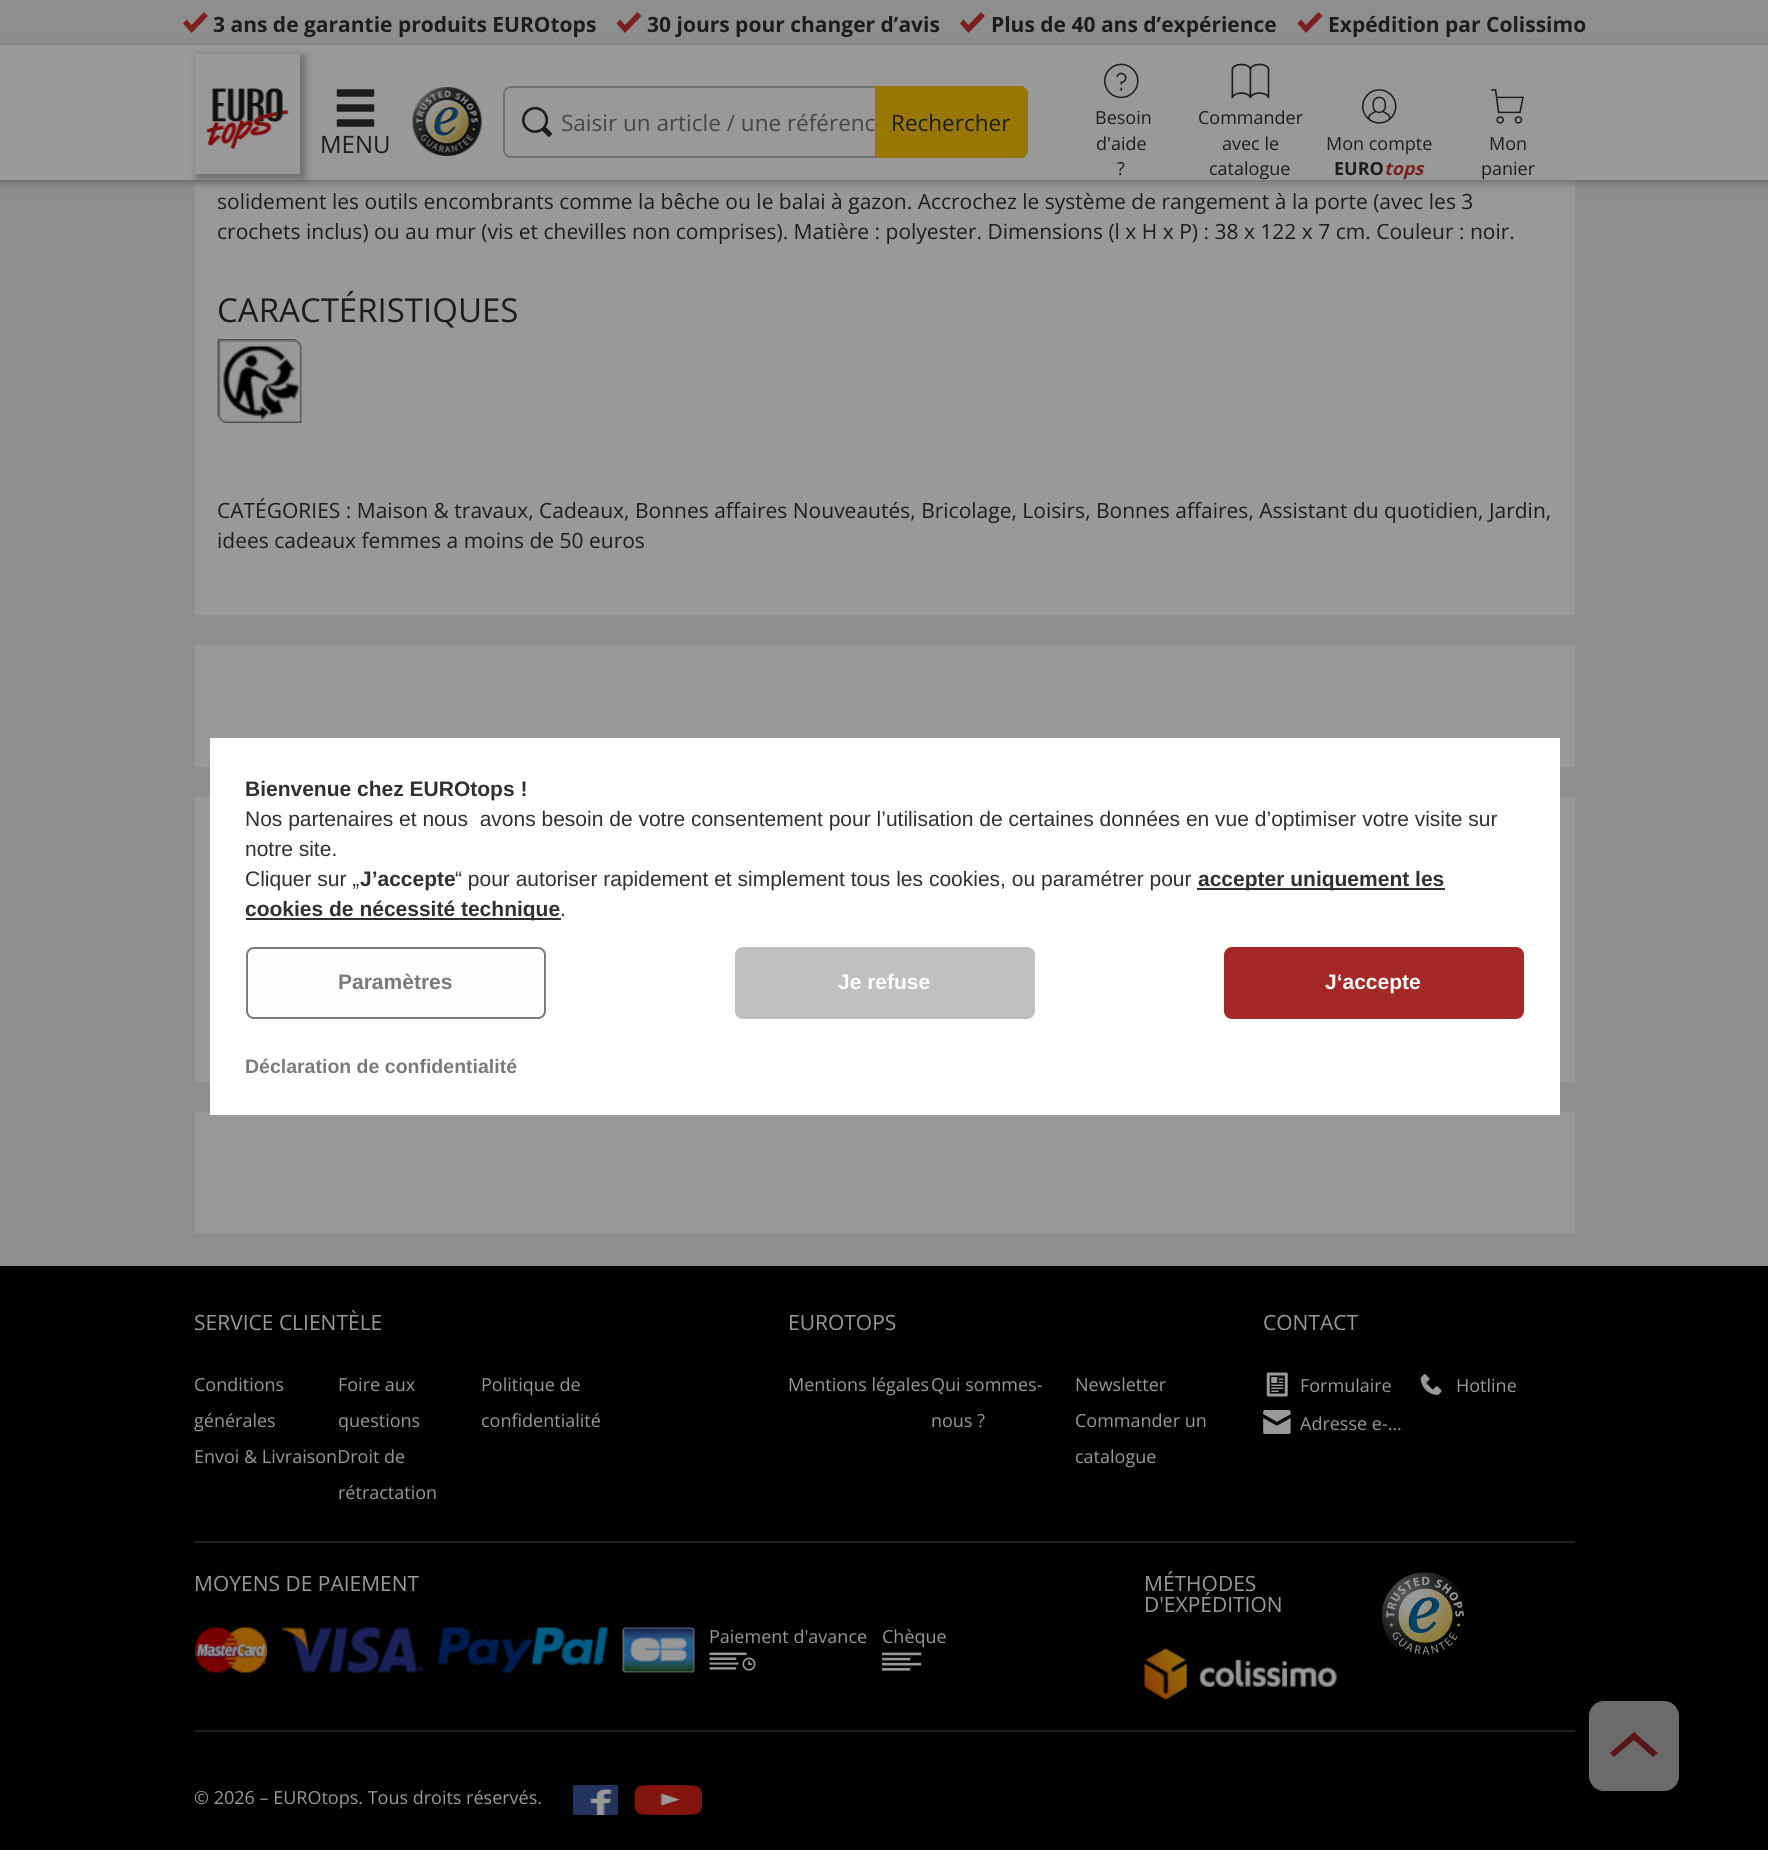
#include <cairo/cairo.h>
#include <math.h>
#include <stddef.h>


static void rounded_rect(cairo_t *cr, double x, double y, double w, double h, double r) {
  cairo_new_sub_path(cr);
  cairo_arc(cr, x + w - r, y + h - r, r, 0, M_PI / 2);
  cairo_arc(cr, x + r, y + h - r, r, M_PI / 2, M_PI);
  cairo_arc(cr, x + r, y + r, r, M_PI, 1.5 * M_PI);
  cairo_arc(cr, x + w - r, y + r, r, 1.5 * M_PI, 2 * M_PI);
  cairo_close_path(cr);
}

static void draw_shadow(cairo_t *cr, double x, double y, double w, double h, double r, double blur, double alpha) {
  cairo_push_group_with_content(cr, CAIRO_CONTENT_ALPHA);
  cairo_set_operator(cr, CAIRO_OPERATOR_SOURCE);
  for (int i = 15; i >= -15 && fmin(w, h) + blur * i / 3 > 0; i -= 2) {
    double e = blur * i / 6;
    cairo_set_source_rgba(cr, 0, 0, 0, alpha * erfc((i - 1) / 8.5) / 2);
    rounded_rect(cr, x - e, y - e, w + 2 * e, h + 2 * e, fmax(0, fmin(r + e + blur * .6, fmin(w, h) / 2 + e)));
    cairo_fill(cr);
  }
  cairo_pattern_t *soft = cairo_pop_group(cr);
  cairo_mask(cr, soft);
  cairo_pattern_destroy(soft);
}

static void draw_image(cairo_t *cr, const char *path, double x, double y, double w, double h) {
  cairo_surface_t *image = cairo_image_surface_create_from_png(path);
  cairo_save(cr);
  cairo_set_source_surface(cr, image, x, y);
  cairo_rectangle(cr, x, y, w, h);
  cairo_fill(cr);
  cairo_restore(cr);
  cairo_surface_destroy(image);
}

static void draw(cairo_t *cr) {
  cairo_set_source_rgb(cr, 142 / 255.0, 142 / 255.0, 142 / 255.0);
  cairo_paint(cr);
  cairo_set_source_rgb(cr, 123 / 255.0, 31 / 255.0, 31 / 255.0);
  cairo_new_path(cr);
  cairo_move_to(cr, 191.5, 25);
  cairo_line_to(cr, 186.5, 19.5);
  cairo_line_to(cr, 183, 23.5);
  cairo_line_to(cr, 191.5, 33);
  cairo_line_to(cr, 208, 16);
  cairo_line_to(cr, 204, 12);
  cairo_close_path(cr);
  cairo_fill(cr);
  cairo_new_path(cr);
  cairo_move_to(cr, 625, 25);
  cairo_line_to(cr, 620, 19.5);
  cairo_line_to(cr, 616.5, 23.5);
  cairo_line_to(cr, 625, 33);
  cairo_line_to(cr, 641.5, 16);
  cairo_line_to(cr, 637.5, 12);
  cairo_close_path(cr);
  cairo_fill(cr);
  cairo_new_path(cr);
  cairo_move_to(cr, 968.5, 25);
  cairo_line_to(cr, 963.5, 19.5);
  cairo_line_to(cr, 960, 23.5);
  cairo_line_to(cr, 968.5, 33);
  cairo_line_to(cr, 985, 16);
  cairo_line_to(cr, 981, 12);
  cairo_close_path(cr);
  cairo_fill(cr);
  cairo_new_path(cr);
  cairo_move_to(cr, 1306, 25);
  cairo_line_to(cr, 1301, 19.5);
  cairo_line_to(cr, 1297.5, 23.5);
  cairo_line_to(cr, 1306, 33);
  cairo_line_to(cr, 1322.5, 16);
  cairo_line_to(cr, 1318.5, 12);
  cairo_close_path(cr);
  cairo_fill(cr);
  cairo_set_source_rgb(cr, 153 / 255.0, 153 / 255.0, 153 / 255.0);
  cairo_rectangle(cr, 195, 180, 1380, 435);
  cairo_fill(cr);
  cairo_set_source_rgb(cr, 0, 0, 0);
  draw_shadow(cr, 0, 48, 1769, 135, 0, 7.5, 0.12);
  draw_shadow(cr, 0, 48, 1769, 135, 0, 3, 0.16);
  cairo_set_source_rgb(cr, 153 / 255.0, 153 / 255.0, 153 / 255.0);
  cairo_rectangle(cr, 0, 45, 1768, 135);
  cairo_fill(cr);
  cairo_save(cr);
  cairo_set_fill_rule(cr, CAIRO_FILL_RULE_EVEN_ODD);
  cairo_new_path(cr);
  cairo_move_to(cr, 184, 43);
  cairo_line_to(cr, 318, 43);
  cairo_line_to(cr, 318, 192);
  cairo_line_to(cr, 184, 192);
  cairo_close_path(cr);
  cairo_move_to(cr, 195, 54);
  cairo_line_to(cr, 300, 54);
  cairo_line_to(cr, 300, 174);
  cairo_line_to(cr, 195, 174);
  cairo_close_path(cr);
  cairo_clip(cr);
  cairo_set_source_rgb(cr, 0, 0, 0);
  draw_shadow(cr, 197, 56, 108, 123, 0, 4, 0.3);
  cairo_restore(cr);
  draw_image(cr, "images/1.png", 206, 88, 83, 62);
  draw_image(cr, "images/2.png", 412, 87, 70, 69);
  rounded_rect(cr, 504, 87, 523, 70, 7);
  cairo_set_source_rgb(cr, 113 / 255.0, 113 / 255.0, 113 / 255.0);
  cairo_stroke(cr);
  draw_image(cr, "images/3.png", 522, 106, 30, 31);
  cairo_set_source_rgb(cr, 153 / 255.0, 119 / 255.0, 5 / 255.0);
  cairo_new_path(cr);
  cairo_move_to(cr, 875, 86);
  cairo_line_to(cr, 1020, 86);
  cairo_curve_to(cr, 1024.5, 86, 1028, 89.5, 1028, 94);
  cairo_line_to(cr, 1028, 150);
  cairo_curve_to(cr, 1028, 154.5, 1024.5, 158, 1020, 158);
  cairo_line_to(cr, 875, 158);
  cairo_close_path(cr);
  cairo_fill(cr);
  draw_image(cr, "images/4.png", 1104, 63, 35, 36);
  draw_image(cr, "images/5.png", 1231, 63, 39, 36);
  draw_image(cr, "images/6.png", 1362, 89, 35, 35);
  draw_image(cr, "images/7.png", 1491, 89, 33, 35);
  draw_image(cr, "images/8.png", 336, 89, 39, 38);
  draw_image(cr, "images/9.png", 217, 339, 85, 84);
  cairo_set_source_rgb(cr, 153 / 255.0, 153 / 255.0, 153 / 255.0);
  cairo_rectangle(cr, 195, 645, 1380, 122);
  cairo_fill(cr);
  cairo_rectangle(cr, 195, 797, 1380, 285);
  cairo_fill(cr);
  cairo_rectangle(cr, 195, 1112, 1380, 121);
  cairo_fill(cr);
  cairo_set_source_rgb(cr, 0, 0, 0);
  cairo_rectangle(cr, 0, 1266, 1768, 584);
  cairo_fill(cr);
  cairo_set_source_rgb(cr, 139 / 255.0, 139 / 255.0, 139 / 255.0);
  cairo_rectangle(cr, 0, 1263, 1768, 3);
  cairo_fill(cr);
  cairo_set_source_rgb(cr, 31 / 255.0, 31 / 255.0, 31 / 255.0);
  cairo_rectangle(cr, 195, 1541, 1380, 2);
  cairo_fill(cr);
  draw_image(cr, "images/10.png", 1266, 1372, 22, 25);
  draw_image(cr, "images/11.png", 1420, 1374, 22, 21);
  draw_image(cr, "images/12.png", 1263, 1410, 28, 24);
  cairo_rectangle(cr, 195, 1730, 1380, 2);
  cairo_fill(cr);
  draw_image(cr, "images/13.png", 195, 1627, 72, 46);
  draw_image(cr, "images/14.png", 282, 1627, 141, 46);
  draw_image(cr, "images/15.png", 438, 1627, 170, 46);
  draw_image(cr, "images/16.png", 622, 1627, 73, 46);
  draw_image(cr, "images/17.png", 709, 1652, 47, 19);
  draw_image(cr, "images/18.png", 882, 1652, 40, 19);
  draw_image(cr, "images/19.png", 1144, 1648, 193, 52);
  draw_image(cr, "images/20.png", 1382, 1572, 82, 83);
  draw_image(cr, "images/21.png", 573, 1785, 45, 30);
  draw_image(cr, "images/22.png", 634, 1785, 68, 30);
  cairo_set_source_rgb(cr, 107 / 255.0, 107 / 255.0, 107 / 255.0);
  rounded_rect(cr, 1589, 1701, 90, 90, 15);
  cairo_fill(cr);
  cairo_set_source_rgb(cr, 86 / 255.0, 22 / 255.0, 22 / 255.0);
  cairo_new_path(cr);
  cairo_move_to(cr, 1634, 1732);
  cairo_line_to(cr, 1610, 1753);
  cairo_line_to(cr, 1614, 1757);
  cairo_line_to(cr, 1634, 1740);
  cairo_line_to(cr, 1653, 1757);
  cairo_line_to(cr, 1658, 1753);
  cairo_close_path(cr);
  cairo_fill(cr);
  cairo_set_source_rgb(cr, 1, 1, 1);
  cairo_rectangle(cr, 210, 738, 1350, 377);
  cairo_fill(cr);
  cairo_set_source_rgb(cr, 48 / 255.0, 48 / 255.0, 48 / 255.0);
  cairo_rectangle(cr, 1197, 888, 248, 2);
  cairo_fill(cr);
  cairo_rectangle(cr, 246, 918, 315, 2);
  cairo_fill(cr);
  cairo_set_source_rgb(cr, 1, 252 / 255.0, 252 / 255.0);
  rounded_rect(cr, 247, 948, 298, 70, 7);
  cairo_fill_preserve(cr);
  cairo_set_source_rgb(cr, 122 / 255.0, 122 / 255.0, 122 / 255.0);
  cairo_stroke(cr);
  cairo_set_source_rgb(cr, 192 / 255.0, 192 / 255.0, 192 / 255.0);
  rounded_rect(cr, 735, 947, 300, 72, 8);
  cairo_fill(cr);
  cairo_set_source_rgb(cr, 165 / 255.0, 40 / 255.0, 40 / 255.0);
  rounded_rect(cr, 1224, 947, 300, 72, 8);
  cairo_fill(cr);
  cairo_select_font_face(cr, "Open Sans", CAIRO_FONT_SLANT_NORMAL, CAIRO_FONT_WEIGHT_BOLD);
  cairo_set_font_size(cr, 21);
  cairo_set_source_rgb(cr, 29 / 255.0, 29 / 255.0, 29 / 255.0);
  cairo_move_to(cr, 213, 32);
  cairo_show_text(cr, "3 ans de garantie produits EUROtops");
  cairo_move_to(cr, 647, 32);
  cairo_show_text(cr, "30 jours pour changer d’avis");
  cairo_move_to(cr, 991, 32);
  cairo_show_text(cr, "Plus de 40 ans d’expérience");
  cairo_move_to(cr, 1328, 32);
  cairo_show_text(cr, "Expédition par Colissimo");
  cairo_select_font_face(cr, "Open Sans", CAIRO_FONT_SLANT_NORMAL, CAIRO_FONT_WEIGHT_NORMAL);
  cairo_set_font_size(cr, 22.5);
  cairo_set_source_rgb(cr, 70 / 255.0, 70 / 255.0, 70 / 255.0);
  cairo_move_to(cr, 561, 131);
  cairo_show_text(cr, "Saisir un article / une référenc");
  cairo_set_source_rgb(cr, 29 / 255.0, 29 / 255.0, 29 / 255.0);
  cairo_move_to(cr, 891, 131);
  cairo_show_text(cr, "Rechercher");
  cairo_set_font_size(cr, 18);
  cairo_move_to(cr, 1095, 124);
  cairo_show_text(cr, "Besoin");
  cairo_move_to(cr, 1096, 150);
  cairo_show_text(cr, "d'aide");
  cairo_move_to(cr, 1117, 175);
  cairo_show_text(cr, "?");
  cairo_move_to(cr, 1198, 124);
  cairo_show_text(cr, "Commander");
  cairo_move_to(cr, 1222, 150);
  cairo_show_text(cr, "avec le");
  cairo_move_to(cr, 1209, 175);
  cairo_show_text(cr, "catalogue");
  cairo_move_to(cr, 1326, 150);
  cairo_show_text(cr, "Mon compte");
  cairo_select_font_face(cr, "Open Sans", CAIRO_FONT_SLANT_NORMAL, CAIRO_FONT_WEIGHT_BOLD);
  cairo_move_to(cr, 1334, 175);
  cairo_show_text(cr, "EURO");
  cairo_select_font_face(cr, "Open Sans", CAIRO_FONT_SLANT_ITALIC, CAIRO_FONT_WEIGHT_BOLD);
  cairo_set_source_rgb(cr, 123 / 255.0, 31 / 255.0, 31 / 255.0);
  cairo_move_to(cr, 1384, 175);
  cairo_show_text(cr, "tops");
  cairo_select_font_face(cr, "Open Sans", CAIRO_FONT_SLANT_NORMAL, CAIRO_FONT_WEIGHT_NORMAL);
  cairo_set_source_rgb(cr, 29 / 255.0, 29 / 255.0, 29 / 255.0);
  cairo_move_to(cr, 1489, 150);
  cairo_show_text(cr, "Mon");
  cairo_move_to(cr, 1481, 175);
  cairo_show_text(cr, "panier");
  cairo_set_font_size(cr, 24);
  cairo_move_to(cr, 320, 153);
  cairo_show_text(cr, "MENU");
  cairo_set_font_size(cr, 21);
  cairo_move_to(cr, 217, 209);
  cairo_show_text(cr, "solidement les outils encombrants comme la bêche ou le balai à gazon. Accrochez le système de rangement à la porte (avec les 3");
  cairo_move_to(cr, 217, 239);
  cairo_show_text(cr, "crochets inclus) ou au mur (vis et chevilles non comprises). Matière : polyester. Dimensions (l x H x P) : 38 x 122 x 7 cm. Couleur : noir.");
  cairo_set_font_size(cr, 33);
  cairo_move_to(cr, 217, 322);
  cairo_show_text(cr, "CARACTÉRISTIQUES");
  cairo_set_font_size(cr, 21);
  cairo_move_to(cr, 217, 518);
  cairo_show_text(cr, "CATÉGORIES : Maison & travaux, Cadeaux, Bonnes affaires Nouveautés, Bricolage, Loisirs, Bonnes affaires, Assistant du quotidien, Jardin,");
  cairo_move_to(cr, 217, 548);
  cairo_show_text(cr, "idees cadeaux femmes a moins de 50 euros");
  cairo_set_source_rgb(cr, 153 / 255.0, 153 / 255.0, 153 / 255.0);
  cairo_move_to(cr, 194, 1330);
  cairo_show_text(cr, "SERVICE CLIENTÈLE");
  cairo_set_font_size(cr, 18);
  cairo_move_to(cr, 194, 1391);
  cairo_show_text(cr, "Conditions");
  cairo_move_to(cr, 194, 1427);
  cairo_show_text(cr, "générales");
  cairo_move_to(cr, 338, 1391);
  cairo_show_text(cr, "Foire aux");
  cairo_move_to(cr, 338, 1427);
  cairo_show_text(cr, "questions");
  cairo_move_to(cr, 481, 1391);
  cairo_show_text(cr, "Politique de");
  cairo_move_to(cr, 481, 1427);
  cairo_show_text(cr, "confidentialité");
  cairo_move_to(cr, 194, 1463);
  cairo_show_text(cr, "Envoi & LivraisonDroit de");
  cairo_move_to(cr, 338, 1499);
  cairo_show_text(cr, "rétractation");
  cairo_set_font_size(cr, 21);
  cairo_move_to(cr, 788, 1330);
  cairo_show_text(cr, "EUROTOPS");
  cairo_set_font_size(cr, 18);
  cairo_move_to(cr, 788, 1391);
  cairo_show_text(cr, "Mentions légales");
  cairo_move_to(cr, 931, 1391);
  cairo_show_text(cr, "Qui sommes-");
  cairo_move_to(cr, 931, 1427);
  cairo_show_text(cr, "nous ?");
  cairo_move_to(cr, 1075, 1391);
  cairo_show_text(cr, "Newsletter");
  cairo_move_to(cr, 1075, 1427);
  cairo_show_text(cr, "Commander un");
  cairo_move_to(cr, 1075, 1463);
  cairo_show_text(cr, "catalogue");
  cairo_set_font_size(cr, 21);
  cairo_move_to(cr, 1263, 1330);
  cairo_show_text(cr, "CONTACT");
  cairo_set_font_size(cr, 18);
  cairo_move_to(cr, 1300, 1392);
  cairo_show_text(cr, "Formulaire");
  cairo_move_to(cr, 1456, 1392);
  cairo_show_text(cr, "Hotline");
  cairo_move_to(cr, 1300, 1430);
  cairo_show_text(cr, "Adresse e-…");
  cairo_set_font_size(cr, 21);
  cairo_move_to(cr, 194, 1591);
  cairo_show_text(cr, "MOYENS DE PAIEMENT");
  cairo_set_font_size(cr, 18);
  cairo_move_to(cr, 709, 1643);
  cairo_show_text(cr, "Paiement d'avance");
  cairo_move_to(cr, 882, 1643);
  cairo_show_text(cr, "Chèque");
  cairo_set_font_size(cr, 21);
  cairo_move_to(cr, 1144, 1591);
  cairo_show_text(cr, "MÉTHODES");
  cairo_move_to(cr, 1144, 1612);
  cairo_show_text(cr, "D'EXPÉDITION");
  cairo_set_font_size(cr, 18);
  cairo_move_to(cr, 194, 1804);
  cairo_show_text(cr, "© 2026 – EUROtops. Tous droits réservés.");
  cairo_select_font_face(cr, "Liberation Sans", CAIRO_FONT_SLANT_NORMAL, CAIRO_FONT_WEIGHT_BOLD);
  cairo_set_font_size(cr, 21);
  cairo_set_source_rgb(cr, 48 / 255.0, 48 / 255.0, 48 / 255.0);
  cairo_move_to(cr, 245, 796);
  cairo_show_text(cr, "Bienvenue chez EUROtops !");
  cairo_select_font_face(cr, "Liberation Sans", CAIRO_FONT_SLANT_NORMAL, CAIRO_FONT_WEIGHT_NORMAL);
  cairo_move_to(cr, 245, 826);
  cairo_show_text(cr, "Nos partenaires et nous  avons besoin de votre consentement pour l’utilisation de certaines données en vue d’optimiser votre visite sur");
  cairo_move_to(cr, 245, 856);
  cairo_show_text(cr, "notre site.");
  cairo_move_to(cr, 245, 886);
  cairo_show_text(cr, "Cliquer sur „");
  cairo_select_font_face(cr, "Liberation Sans", CAIRO_FONT_SLANT_NORMAL, CAIRO_FONT_WEIGHT_BOLD);
  cairo_move_to(cr, 360, 886);
  cairo_show_text(cr, "J’accepte");
  cairo_select_font_face(cr, "Liberation Sans", CAIRO_FONT_SLANT_NORMAL, CAIRO_FONT_WEIGHT_NORMAL);
  cairo_move_to(cr, 455, 886);
  cairo_show_text(cr, "“ pour autoriser rapidement et simplement tous les cookies, ou paramétrer pour");
  cairo_select_font_face(cr, "Liberation Sans", CAIRO_FONT_SLANT_NORMAL, CAIRO_FONT_WEIGHT_BOLD);
  cairo_move_to(cr, 1198, 886);
  cairo_show_text(cr, "accepter uniquement les");
  cairo_move_to(cr, 245, 916);
  cairo_show_text(cr, "cookies de nécessité technique");
  cairo_select_font_face(cr, "Liberation Sans", CAIRO_FONT_SLANT_NORMAL, CAIRO_FONT_WEIGHT_NORMAL);
  cairo_move_to(cr, 560, 916);
  cairo_show_text(cr, ".");
  cairo_select_font_face(cr, "Liberation Sans", CAIRO_FONT_SLANT_NORMAL, CAIRO_FONT_WEIGHT_BOLD);
  cairo_set_source_rgb(cr, 122 / 255.0, 122 / 255.0, 122 / 255.0);
  cairo_move_to(cr, 338, 989);
  cairo_show_text(cr, "Paramètres");
  cairo_set_source_rgb(cr, 1, 252 / 255.0, 252 / 255.0);
  cairo_move_to(cr, 838, 989);
  cairo_show_text(cr, "Je refuse");
  cairo_move_to(cr, 1325, 989);
  cairo_show_text(cr, "J‘accepte");
  cairo_set_font_size(cr, 19.5);
  cairo_set_source_rgb(cr, 122 / 255.0, 122 / 255.0, 122 / 255.0);
  cairo_move_to(cr, 245, 1073);
  cairo_show_text(cr, "Déclaration de confidentialité");
}

int main(void) {
  cairo_surface_t *surface = cairo_image_surface_create(CAIRO_FORMAT_RGB24, 1768, 1850);
  cairo_t *cr = cairo_create(surface);
  cairo_font_options_t *options = cairo_font_options_create();
  cairo_font_options_set_hint_metrics(options, CAIRO_HINT_METRICS_OFF);
  cairo_font_options_set_hint_style(options, CAIRO_HINT_STYLE_NONE);
  cairo_set_font_options(cr, options);
  cairo_set_miter_limit(cr, 4);
  draw(cr);
  cairo_surface_write_to_png(surface, "out.png");
  cairo_font_options_destroy(options);
  cairo_destroy(cr);
  cairo_surface_destroy(surface);
  return 0;
}
